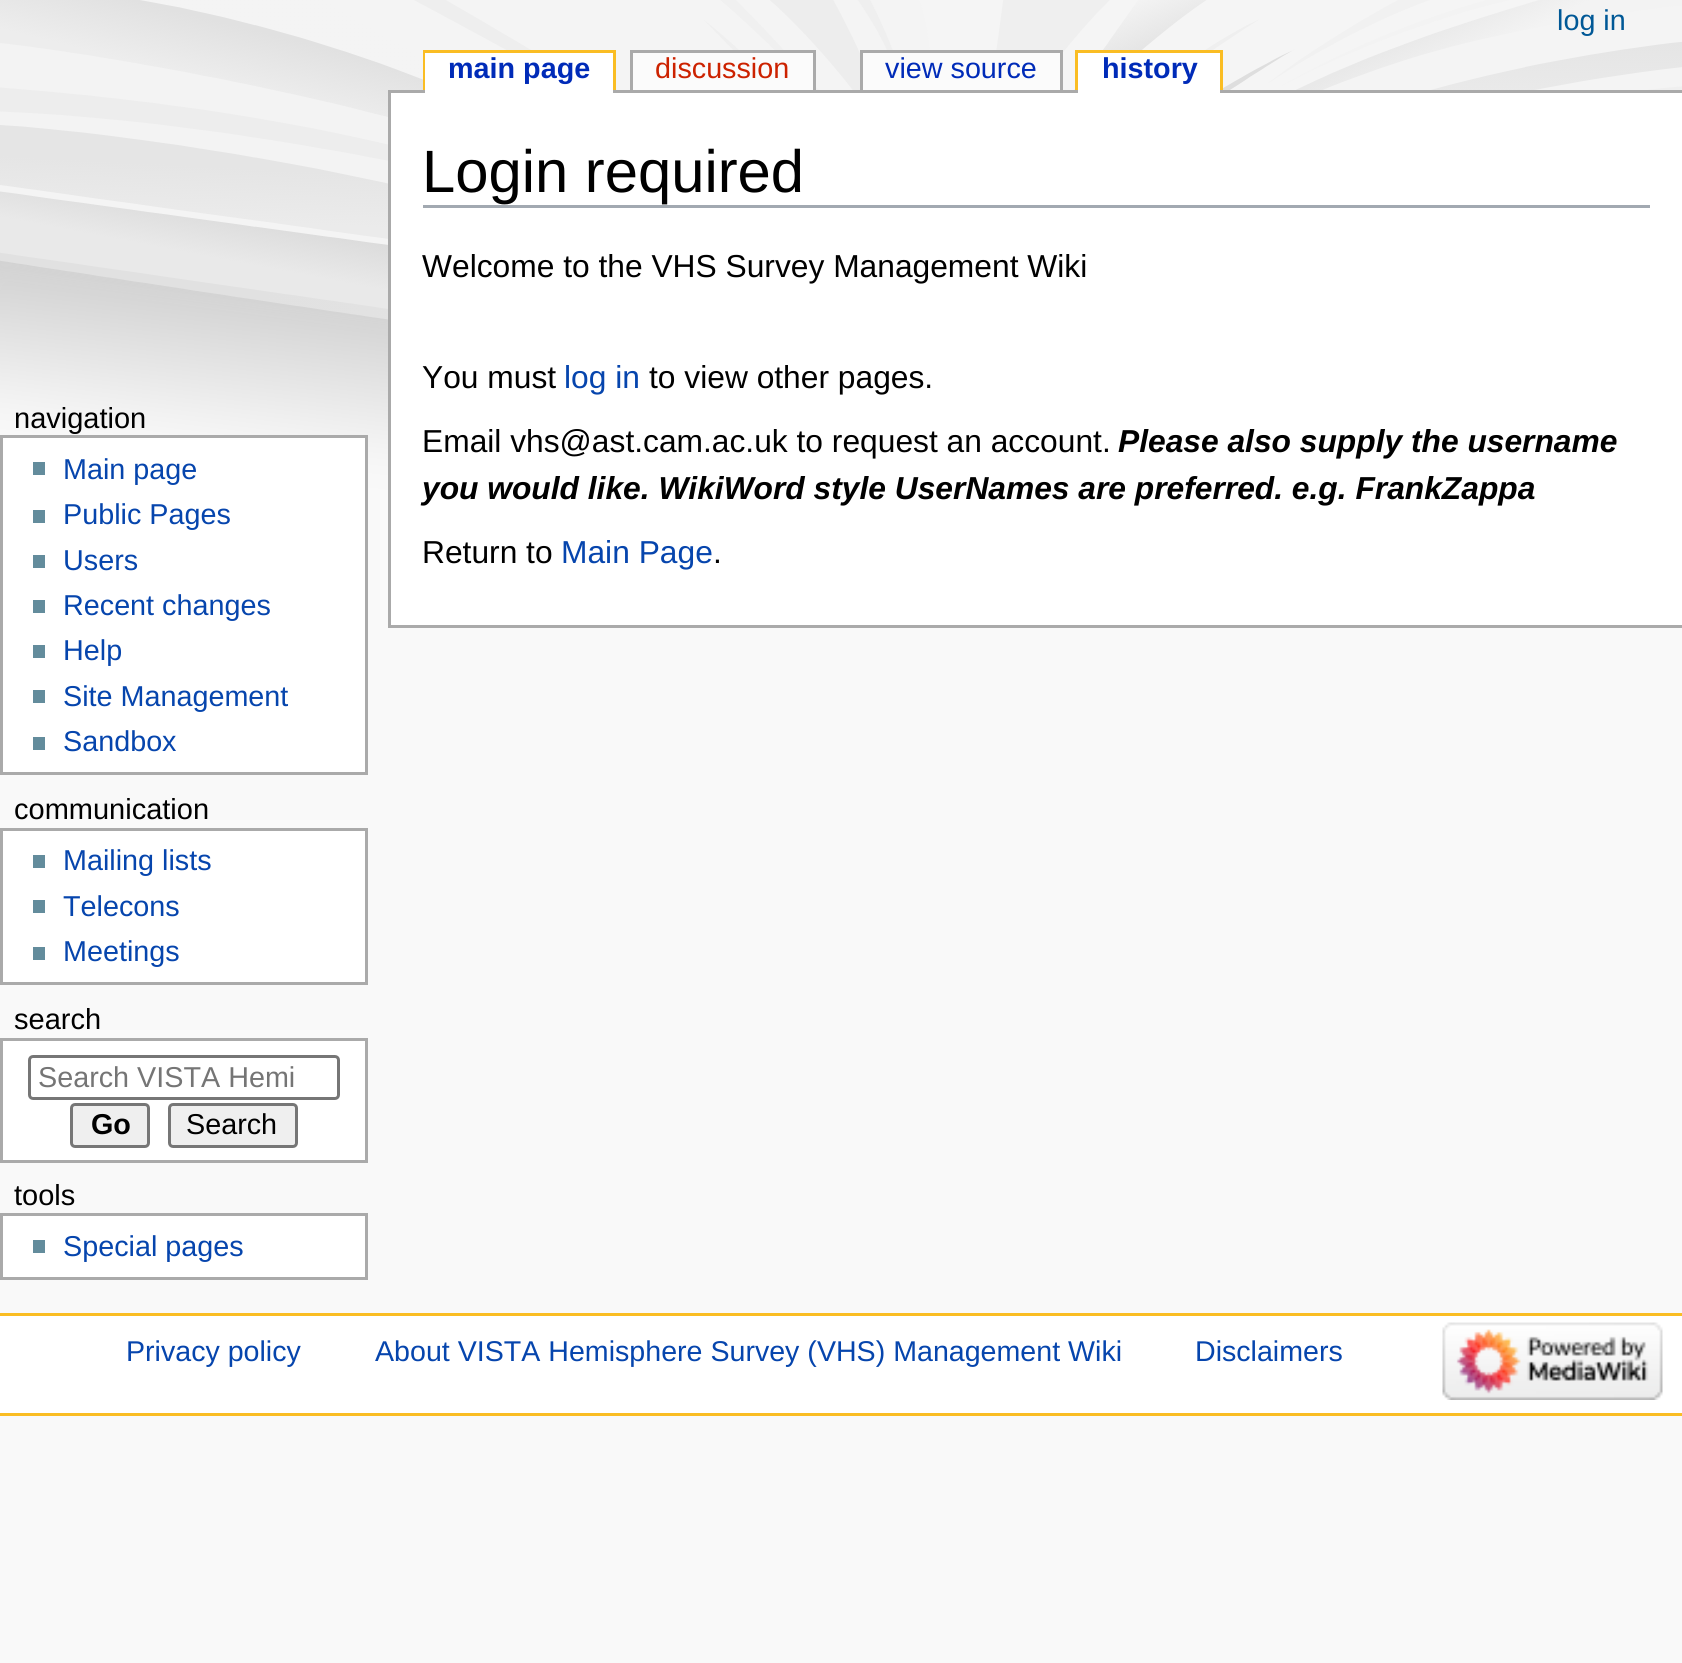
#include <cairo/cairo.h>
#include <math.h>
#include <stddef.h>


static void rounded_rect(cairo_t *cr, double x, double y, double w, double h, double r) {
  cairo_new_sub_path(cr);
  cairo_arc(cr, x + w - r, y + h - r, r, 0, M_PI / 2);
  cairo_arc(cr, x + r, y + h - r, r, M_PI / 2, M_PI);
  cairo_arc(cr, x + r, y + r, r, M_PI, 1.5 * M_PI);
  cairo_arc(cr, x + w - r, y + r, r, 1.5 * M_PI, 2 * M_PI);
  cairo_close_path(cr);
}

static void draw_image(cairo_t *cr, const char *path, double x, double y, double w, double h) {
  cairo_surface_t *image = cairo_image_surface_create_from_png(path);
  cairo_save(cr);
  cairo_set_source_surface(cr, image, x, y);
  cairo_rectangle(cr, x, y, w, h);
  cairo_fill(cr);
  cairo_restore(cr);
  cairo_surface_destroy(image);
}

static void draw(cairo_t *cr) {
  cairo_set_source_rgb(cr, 249 / 255.0, 249 / 255.0, 249 / 255.0);
  cairo_paint(cr);
  draw_image(cr, "images/1.png", 0, 0, 1682, 525);
  cairo_set_source_rgb(cr, 250 / 255.0, 189 / 255.0, 35 / 255.0);
  cairo_rectangle(cr, 423, 50, 192, 3);
  cairo_fill(cr);
  cairo_rectangle(cr, 613, 50, 3, 40);
  cairo_fill(cr);
  cairo_rectangle(cr, 423, 50, 3, 40);
  cairo_fill(cr);
  cairo_set_source_rgb(cr, 170 / 255.0, 170 / 255.0, 170 / 255.0);
  cairo_rectangle(cr, 388, 90, 1294, 3);
  cairo_fill(cr);
  cairo_set_source_rgb(cr, 1, 1, 1);
  cairo_rectangle(cr, 425, 53, 188, 40);
  cairo_fill(cr);
  cairo_set_source_rgb(cr, 170 / 255.0, 170 / 255.0, 170 / 255.0);
  cairo_rectangle(cr, 630, 50, 185, 3);
  cairo_fill(cr);
  cairo_rectangle(cr, 813, 50, 3, 40);
  cairo_fill(cr);
  cairo_rectangle(cr, 630, 50, 3, 40);
  cairo_fill(cr);
  cairo_set_source_rgb(cr, 251 / 255.0, 251 / 255.0, 251 / 255.0);
  cairo_rectangle(cr, 633, 53, 180, 37);
  cairo_fill(cr);
  cairo_set_source_rgb(cr, 170 / 255.0, 170 / 255.0, 170 / 255.0);
  cairo_rectangle(cr, 860, 50, 203, 3);
  cairo_fill(cr);
  cairo_rectangle(cr, 1060, 50, 3, 40);
  cairo_fill(cr);
  cairo_rectangle(cr, 860, 50, 3, 40);
  cairo_fill(cr);
  cairo_set_source_rgb(cr, 251 / 255.0, 251 / 255.0, 251 / 255.0);
  cairo_rectangle(cr, 863, 53, 197, 37);
  cairo_fill(cr);
  cairo_set_source_rgb(cr, 250 / 255.0, 189 / 255.0, 35 / 255.0);
  cairo_rectangle(cr, 1075, 50, 148, 3);
  cairo_fill(cr);
  cairo_rectangle(cr, 1220, 50, 3, 40);
  cairo_fill(cr);
  cairo_rectangle(cr, 1075, 50, 3, 40);
  cairo_fill(cr);
  cairo_set_source_rgb(cr, 1, 1, 1);
  cairo_rectangle(cr, 1078, 53, 142, 40);
  cairo_fill(cr);
  cairo_rectangle(cr, 1.5, 436.5, 365, 337);
  cairo_fill_preserve(cr);
  cairo_set_source_rgb(cr, 170 / 255.0, 170 / 255.0, 170 / 255.0);
  cairo_set_line_width(cr, 3);
  cairo_stroke(cr);
  cairo_set_source_rgb(cr, 99 / 255.0, 140 / 255.0, 156 / 255.0);
  cairo_rectangle(cr, 33, 462, 12, 13);
  cairo_fill(cr);
  cairo_rectangle(cr, 33, 510, 12, 13);
  cairo_fill(cr);
  cairo_rectangle(cr, 33, 555, 12, 13);
  cairo_fill(cr);
  cairo_rectangle(cr, 33, 600, 12, 13);
  cairo_fill(cr);
  cairo_rectangle(cr, 33, 645, 12, 13);
  cairo_fill(cr);
  cairo_rectangle(cr, 33, 690, 12, 13);
  cairo_fill(cr);
  cairo_rectangle(cr, 33, 737, 12, 13);
  cairo_fill(cr);
  cairo_set_source_rgb(cr, 1, 1, 1);
  cairo_rectangle(cr, 1.5, 829.5, 365, 154);
  cairo_fill_preserve(cr);
  cairo_set_source_rgb(cr, 170 / 255.0, 170 / 255.0, 170 / 255.0);
  cairo_stroke(cr);
  cairo_set_source_rgb(cr, 99 / 255.0, 140 / 255.0, 156 / 255.0);
  cairo_rectangle(cr, 33, 855, 12, 13);
  cairo_fill(cr);
  cairo_rectangle(cr, 33, 900, 12, 13);
  cairo_fill(cr);
  cairo_rectangle(cr, 33, 947, 12, 13);
  cairo_fill(cr);
  cairo_set_source_rgb(cr, 1, 1, 1);
  cairo_rectangle(cr, 1.5, 1039.5, 365, 122);
  cairo_fill_preserve(cr);
  cairo_set_source_rgb(cr, 170 / 255.0, 170 / 255.0, 170 / 255.0);
  cairo_stroke(cr);
  rounded_rect(cr, 29.5, 1056.5, 309, 42, 3.5);
  cairo_set_source_rgb(cr, 118 / 255.0, 118 / 255.0, 118 / 255.0);
  cairo_stroke(cr);
  cairo_set_source_rgb(cr, 239 / 255.0, 239 / 255.0, 239 / 255.0);
  rounded_rect(cr, 71.5, 1104.5, 77, 42, 3.5);
  cairo_fill_preserve(cr);
  cairo_set_source_rgb(cr, 118 / 255.0, 118 / 255.0, 118 / 255.0);
  cairo_stroke(cr);
  cairo_set_source_rgb(cr, 239 / 255.0, 239 / 255.0, 239 / 255.0);
  rounded_rect(cr, 169.5, 1104.5, 127, 42, 3.5);
  cairo_fill_preserve(cr);
  cairo_set_source_rgb(cr, 118 / 255.0, 118 / 255.0, 118 / 255.0);
  cairo_stroke(cr);
  cairo_set_source_rgb(cr, 1, 1, 1);
  cairo_rectangle(cr, 1.5, 1214.5, 365, 64);
  cairo_fill_preserve(cr);
  cairo_set_source_rgb(cr, 170 / 255.0, 170 / 255.0, 170 / 255.0);
  cairo_stroke(cr);
  cairo_set_source_rgb(cr, 99 / 255.0, 140 / 255.0, 156 / 255.0);
  cairo_rectangle(cr, 33, 1240, 12, 13);
  cairo_fill(cr);
  cairo_set_source_rgb(cr, 1, 1, 1);
  cairo_rectangle(cr, 391, 93, 1291, 532);
  cairo_fill(cr);
  cairo_set_source_rgb(cr, 170 / 255.0, 170 / 255.0, 170 / 255.0);
  cairo_rectangle(cr, 388, 625, 1294, 3);
  cairo_fill(cr);
  cairo_rectangle(cr, 388, 90, 3, 538);
  cairo_fill(cr);
  cairo_set_source_rgb(cr, 162 / 255.0, 169 / 255.0, 177 / 255.0);
  cairo_rectangle(cr, 423, 205, 1227, 3);
  cairo_fill(cr);
  cairo_set_source_rgb(cr, 1, 1, 1);
  cairo_rectangle(cr, 0, 1316, 1682, 97);
  cairo_fill(cr);
  cairo_set_source_rgb(cr, 250 / 255.0, 189 / 255.0, 35 / 255.0);
  cairo_rectangle(cr, 0, 1313, 1682, 3);
  cairo_fill(cr);
  cairo_rectangle(cr, 0, 1413, 1682, 3);
  cairo_fill(cr);
  draw_image(cr, "images/2.png", 1442, 1322, 221, 78);
  cairo_select_font_face(cr, "Liberation Sans", CAIRO_FONT_SLANT_NORMAL, CAIRO_FONT_WEIGHT_NORMAL);
  cairo_set_font_size(cr, 28.75);
  cairo_set_source_rgb(cr, 0, 88 / 255.0, 150 / 255.0);
  cairo_move_to(cr, 1557, 30);
  cairo_show_text(cr, "log in");
  cairo_select_font_face(cr, "Liberation Sans", CAIRO_FONT_SLANT_NORMAL, CAIRO_FONT_WEIGHT_BOLD);
  cairo_set_source_rgb(cr, 0, 43 / 255.0, 184 / 255.0);
  cairo_move_to(cr, 448, 78);
  cairo_show_text(cr, "main page");
  cairo_select_font_face(cr, "Liberation Sans", CAIRO_FONT_SLANT_NORMAL, CAIRO_FONT_WEIGHT_NORMAL);
  cairo_set_source_rgb(cr, 204 / 255.0, 34 / 255.0, 0);
  cairo_move_to(cr, 655, 78);
  cairo_show_text(cr, "discussion");
  cairo_set_source_rgb(cr, 0, 43 / 255.0, 184 / 255.0);
  cairo_move_to(cr, 885, 78);
  cairo_show_text(cr, "view source");
  cairo_select_font_face(cr, "Liberation Sans", CAIRO_FONT_SLANT_NORMAL, CAIRO_FONT_WEIGHT_BOLD);
  cairo_move_to(cr, 1102, 78);
  cairo_show_text(cr, "history");
  cairo_select_font_face(cr, "Liberation Sans", CAIRO_FONT_SLANT_NORMAL, CAIRO_FONT_WEIGHT_NORMAL);
  cairo_set_font_size(cr, 29);
  cairo_set_source_rgb(cr, 0, 0, 0);
  cairo_move_to(cr, 14, 428);
  cairo_show_text(cr, "navigation");
  cairo_set_font_size(cr, 28.75);
  cairo_set_source_rgb(cr, 6 / 255.0, 69 / 255.0, 173 / 255.0);
  cairo_move_to(cr, 63, 479);
  cairo_show_text(cr, "Main page");
  cairo_move_to(cr, 63, 524);
  cairo_show_text(cr, "Public Pages");
  cairo_move_to(cr, 63, 570);
  cairo_show_text(cr, "Users");
  cairo_move_to(cr, 63, 615);
  cairo_show_text(cr, "Recent changes");
  cairo_move_to(cr, 63, 660);
  cairo_show_text(cr, "Help");
  cairo_move_to(cr, 63, 706);
  cairo_show_text(cr, "Site Management");
  cairo_move_to(cr, 63, 751);
  cairo_show_text(cr, "Sandbox");
  cairo_set_font_size(cr, 29);
  cairo_set_source_rgb(cr, 0, 0, 0);
  cairo_move_to(cr, 14, 819);
  cairo_show_text(cr, "communication");
  cairo_set_font_size(cr, 28.75);
  cairo_set_source_rgb(cr, 6 / 255.0, 69 / 255.0, 173 / 255.0);
  cairo_move_to(cr, 63, 870);
  cairo_show_text(cr, "Mailing lists");
  cairo_move_to(cr, 63, 916);
  cairo_show_text(cr, "Telecons");
  cairo_move_to(cr, 63, 961);
  cairo_show_text(cr, "Meetings");
  cairo_set_font_size(cr, 29);
  cairo_set_source_rgb(cr, 0, 0, 0);
  cairo_move_to(cr, 14, 1029);
  cairo_show_text(cr, "search");
  cairo_set_font_size(cr, 28.75);
  cairo_set_source_rgb(cr, 117 / 255.0, 117 / 255.0, 117 / 255.0);
  cairo_move_to(cr, 38, 1087);
  cairo_show_text(cr, "Search VISTA Hemi");
  cairo_select_font_face(cr, "Liberation Sans", CAIRO_FONT_SLANT_NORMAL, CAIRO_FONT_WEIGHT_BOLD);
  cairo_set_source_rgb(cr, 0, 0, 0);
  cairo_move_to(cr, 91, 1134);
  cairo_show_text(cr, "Go");
  cairo_select_font_face(cr, "Liberation Sans", CAIRO_FONT_SLANT_NORMAL, CAIRO_FONT_WEIGHT_NORMAL);
  cairo_move_to(cr, 186, 1134);
  cairo_show_text(cr, "Search");
  cairo_set_font_size(cr, 29);
  cairo_move_to(cr, 14, 1205);
  cairo_show_text(cr, "tools");
  cairo_set_font_size(cr, 28.75);
  cairo_set_source_rgb(cr, 6 / 255.0, 69 / 255.0, 173 / 255.0);
  cairo_move_to(cr, 63, 1256);
  cairo_show_text(cr, "Special pages");
  cairo_set_font_size(cr, 59.75);
  cairo_set_source_rgb(cr, 0, 0, 0);
  cairo_move_to(cr, 422, 192);
  cairo_show_text(cr, "Login required");
  cairo_set_font_size(cr, 31.75);
  cairo_move_to(cr, 422, 277);
  cairo_show_text(cr, "Welcome to the VHS Survey Management Wiki");
  cairo_move_to(cr, 422, 388);
  cairo_show_text(cr, "You must");
  cairo_set_source_rgb(cr, 6 / 255.0, 69 / 255.0, 173 / 255.0);
  cairo_move_to(cr, 564, 388);
  cairo_show_text(cr, "log in");
  cairo_set_source_rgb(cr, 0, 0, 0);
  cairo_move_to(cr, 649, 388);
  cairo_show_text(cr, "to view other pages.");
  cairo_move_to(cr, 422, 452);
  cairo_show_text(cr, "Email vhs@ast.cam.ac.uk to request an account.");
  cairo_select_font_face(cr, "Liberation Sans", CAIRO_FONT_SLANT_ITALIC, CAIRO_FONT_WEIGHT_BOLD);
  cairo_move_to(cr, 1118, 452);
  cairo_show_text(cr, "Please also supply the username");
  cairo_move_to(cr, 422, 499);
  cairo_show_text(cr, "you would like. WikiWord style UserNames are preferred. e.g. FrankZappa");
  cairo_select_font_face(cr, "Liberation Sans", CAIRO_FONT_SLANT_NORMAL, CAIRO_FONT_WEIGHT_NORMAL);
  cairo_move_to(cr, 422, 563);
  cairo_show_text(cr, "Return to");
  cairo_set_source_rgb(cr, 6 / 255.0, 69 / 255.0, 173 / 255.0);
  cairo_move_to(cr, 561, 563);
  cairo_show_text(cr, "Main Page");
  cairo_set_source_rgb(cr, 0, 0, 0);
  cairo_move_to(cr, 713, 563);
  cairo_show_text(cr, ".");
  cairo_set_font_size(cr, 28.6);
  cairo_set_source_rgb(cr, 6 / 255.0, 69 / 255.0, 173 / 255.0);
  cairo_move_to(cr, 126, 1361);
  cairo_show_text(cr, "Privacy policy");
  cairo_move_to(cr, 375, 1361);
  cairo_show_text(cr, "About VISTA Hemisphere Survey (VHS) Management Wiki");
  cairo_move_to(cr, 1195, 1361);
  cairo_show_text(cr, "Disclaimers");
}

int main(void) {
  cairo_surface_t *surface = cairo_image_surface_create(CAIRO_FORMAT_RGB24, 1682, 1663);
  cairo_t *cr = cairo_create(surface);
  cairo_font_options_t *options = cairo_font_options_create();
  cairo_font_options_set_hint_metrics(options, CAIRO_HINT_METRICS_OFF);
  cairo_font_options_set_hint_style(options, CAIRO_HINT_STYLE_NONE);
  cairo_set_font_options(cr, options);
  cairo_set_miter_limit(cr, 4);
  draw(cr);
  cairo_surface_write_to_png(surface, "out.png");
  cairo_font_options_destroy(options);
  cairo_destroy(cr);
  cairo_surface_destroy(surface);
  return 0;
}
